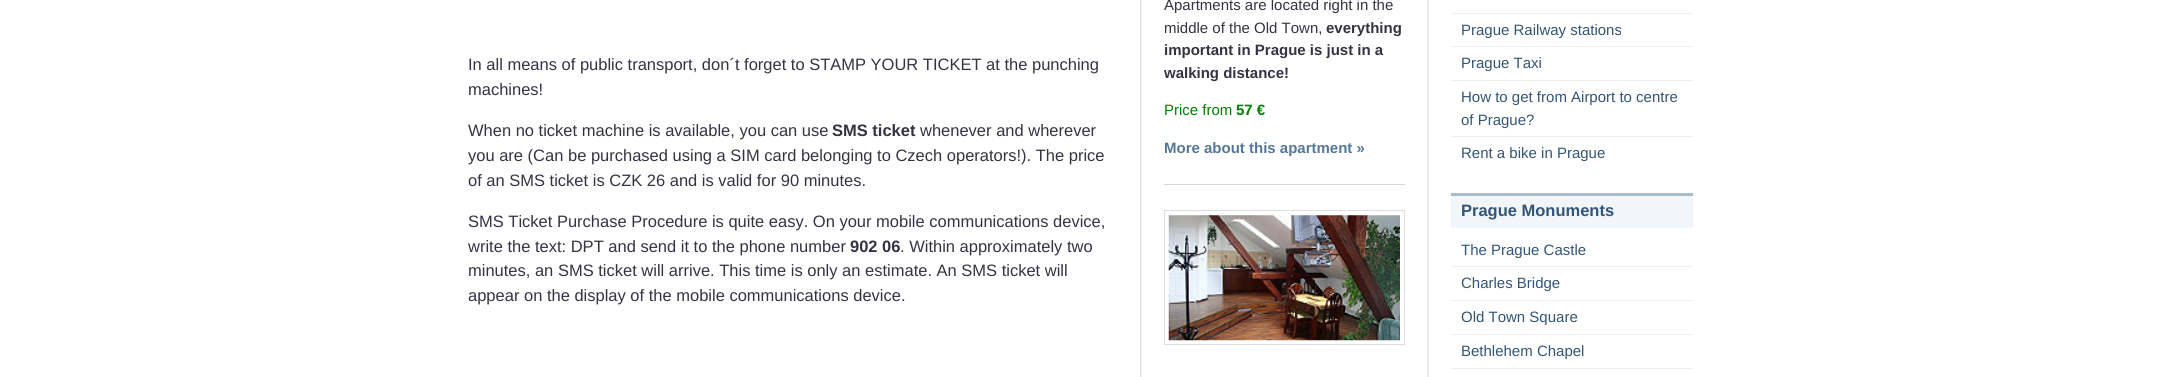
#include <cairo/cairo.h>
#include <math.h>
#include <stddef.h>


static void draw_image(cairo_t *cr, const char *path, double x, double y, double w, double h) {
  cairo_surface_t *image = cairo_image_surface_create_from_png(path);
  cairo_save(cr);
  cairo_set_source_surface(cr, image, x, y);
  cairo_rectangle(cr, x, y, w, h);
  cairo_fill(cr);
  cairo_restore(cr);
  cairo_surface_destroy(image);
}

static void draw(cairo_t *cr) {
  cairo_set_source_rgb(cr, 1, 1, 1);
  cairo_paint(cr);
  draw_image(cr, "images/1.png", 1140, 0, 289, 377);
  cairo_set_source_rgb(cr, 213 / 255.0, 213 / 255.0, 213 / 255.0);
  cairo_rectangle(cr, 1164, 184, 241, 1);
  cairo_fill(cr);
  cairo_rectangle(cr, 1164.5, 210.5, 240, 134);
  cairo_set_source_rgb(cr, 221 / 255.0, 221 / 255.0, 221 / 255.0);
  cairo_set_line_width(cr, 1);
  cairo_stroke(cr);
  draw_image(cr, "images/2.png", 1168, 215, 232, 126);
  cairo_set_source_rgb(cr, 238 / 255.0, 238 / 255.0, 238 / 255.0);
  cairo_rectangle(cr, 1451, 13, 242, 1);
  cairo_fill(cr);
  cairo_rectangle(cr, 1451, 46, 242, 1);
  cairo_fill(cr);
  cairo_rectangle(cr, 1451, 80, 242, 1);
  cairo_fill(cr);
  cairo_rectangle(cr, 1451, 136, 242, 1);
  cairo_fill(cr);
  cairo_set_source_rgb(cr, 242 / 255.0, 246 / 255.0, 250 / 255.0);
  cairo_rectangle(cr, 1451, 196, 242, 32);
  cairo_fill(cr);
  cairo_set_source_rgb(cr, 170 / 255.0, 187 / 255.0, 204 / 255.0);
  cairo_rectangle(cr, 1451, 193, 242, 3);
  cairo_fill(cr);
  cairo_set_source_rgb(cr, 238 / 255.0, 238 / 255.0, 238 / 255.0);
  cairo_rectangle(cr, 1451, 266, 242, 1);
  cairo_fill(cr);
  cairo_rectangle(cr, 1451, 300, 242, 1);
  cairo_fill(cr);
  cairo_rectangle(cr, 1451, 334, 242, 1);
  cairo_fill(cr);
  cairo_rectangle(cr, 1451, 368, 242, 1);
  cairo_fill(cr);
  cairo_select_font_face(cr, "Liberation Sans", CAIRO_FONT_SLANT_NORMAL, CAIRO_FONT_WEIGHT_NORMAL);
  cairo_set_font_size(cr, 16.5);
  cairo_set_source_rgb(cr, 51 / 255.0, 51 / 255.0, 68 / 255.0);
  cairo_move_to(cr, 468, 70);
  cairo_show_text(cr, "In all means of public transport, don´t forget to STAMP YOUR TICKET at the punching");
  cairo_move_to(cr, 468, 95);
  cairo_show_text(cr, "machines!");
  cairo_move_to(cr, 468, 136);
  cairo_show_text(cr, "When no ticket machine is available, you can use");
  cairo_select_font_face(cr, "Liberation Sans", CAIRO_FONT_SLANT_NORMAL, CAIRO_FONT_WEIGHT_BOLD);
  cairo_move_to(cr, 832, 136);
  cairo_show_text(cr, "SMS ticket");
  cairo_select_font_face(cr, "Liberation Sans", CAIRO_FONT_SLANT_NORMAL, CAIRO_FONT_WEIGHT_NORMAL);
  cairo_move_to(cr, 920, 136);
  cairo_show_text(cr, "whenever and wherever");
  cairo_move_to(cr, 468, 161);
  cairo_show_text(cr, "you are (Can be purchased using a SIM card belonging to Czech operators!). The price");
  cairo_move_to(cr, 468, 186);
  cairo_show_text(cr, "of an SMS ticket is CZK 26 and is valid for 90 minutes.");
  cairo_move_to(cr, 468, 227);
  cairo_show_text(cr, "SMS Ticket Purchase Procedure is quite easy. On your mobile communications device,");
  cairo_move_to(cr, 468, 252);
  cairo_show_text(cr, "write the text: DPT and send it to the phone number");
  cairo_select_font_face(cr, "Liberation Sans", CAIRO_FONT_SLANT_NORMAL, CAIRO_FONT_WEIGHT_BOLD);
  cairo_move_to(cr, 850, 252);
  cairo_show_text(cr, "902 06");
  cairo_select_font_face(cr, "Liberation Sans", CAIRO_FONT_SLANT_NORMAL, CAIRO_FONT_WEIGHT_NORMAL);
  cairo_move_to(cr, 900, 252);
  cairo_show_text(cr, ". Within approximately two");
  cairo_move_to(cr, 468, 276);
  cairo_show_text(cr, "minutes, an SMS ticket will arrive. This time is only an estimate. An SMS ticket will");
  cairo_move_to(cr, 468, 301);
  cairo_show_text(cr, "appear on the display of the mobile communications device.");
  cairo_set_font_size(cr, 15);
  cairo_move_to(cr, 1164, 10);
  cairo_show_text(cr, "Apartments are located right in the");
  cairo_move_to(cr, 1164, 33);
  cairo_show_text(cr, "middle of the Old Town,");
  cairo_select_font_face(cr, "Liberation Sans", CAIRO_FONT_SLANT_NORMAL, CAIRO_FONT_WEIGHT_BOLD);
  cairo_move_to(cr, 1326, 33);
  cairo_show_text(cr, "everything");
  cairo_move_to(cr, 1164, 55);
  cairo_show_text(cr, "important in Prague is just in a");
  cairo_move_to(cr, 1164, 78);
  cairo_show_text(cr, "walking distance!");
  cairo_select_font_face(cr, "Liberation Sans", CAIRO_FONT_SLANT_NORMAL, CAIRO_FONT_WEIGHT_NORMAL);
  cairo_set_source_rgb(cr, 0, 128 / 255.0, 0);
  cairo_move_to(cr, 1164, 115);
  cairo_show_text(cr, "Price from");
  cairo_select_font_face(cr, "Liberation Sans", CAIRO_FONT_SLANT_NORMAL, CAIRO_FONT_WEIGHT_BOLD);
  cairo_move_to(cr, 1236, 115);
  cairo_show_text(cr, "57 €");
  cairo_set_source_rgb(cr, 85 / 255.0, 119 / 255.0, 153 / 255.0);
  cairo_move_to(cr, 1164, 153);
  cairo_show_text(cr, "More about this apartment »");
  cairo_select_font_face(cr, "Liberation Sans", CAIRO_FONT_SLANT_NORMAL, CAIRO_FONT_WEIGHT_NORMAL);
  cairo_set_source_rgb(cr, 51 / 255.0, 85 / 255.0, 119 / 255.0);
  cairo_move_to(cr, 1461, 35);
  cairo_show_text(cr, "Prague Railway stations");
  cairo_move_to(cr, 1461, 68);
  cairo_show_text(cr, "Prague Taxi");
  cairo_move_to(cr, 1461, 102);
  cairo_show_text(cr, "How to get from Airport to centre");
  cairo_move_to(cr, 1461, 125);
  cairo_show_text(cr, "of Prague?");
  cairo_move_to(cr, 1461, 158);
  cairo_show_text(cr, "Rent a bike in Prague");
  cairo_select_font_face(cr, "Liberation Sans", CAIRO_FONT_SLANT_NORMAL, CAIRO_FONT_WEIGHT_BOLD);
  cairo_set_font_size(cr, 16.5);
  cairo_move_to(cr, 1461, 216);
  cairo_show_text(cr, "Prague Monuments");
  cairo_select_font_face(cr, "Liberation Sans", CAIRO_FONT_SLANT_NORMAL, CAIRO_FONT_WEIGHT_NORMAL);
  cairo_set_font_size(cr, 15);
  cairo_move_to(cr, 1461, 255);
  cairo_show_text(cr, "The Prague Castle");
  cairo_move_to(cr, 1461, 288);
  cairo_show_text(cr, "Charles Bridge");
  cairo_move_to(cr, 1461, 322);
  cairo_show_text(cr, "Old Town Square");
  cairo_move_to(cr, 1461, 356);
  cairo_show_text(cr, "Bethlehem Chapel");
}

int main(void) {
  cairo_surface_t *surface = cairo_image_surface_create(CAIRO_FORMAT_RGB24, 2159, 377);
  cairo_t *cr = cairo_create(surface);
  cairo_font_options_t *options = cairo_font_options_create();
  cairo_font_options_set_hint_metrics(options, CAIRO_HINT_METRICS_OFF);
  cairo_font_options_set_hint_style(options, CAIRO_HINT_STYLE_NONE);
  cairo_set_font_options(cr, options);
  cairo_set_miter_limit(cr, 4);
  draw(cr);
  cairo_surface_write_to_png(surface, "out.png");
  cairo_font_options_destroy(options);
  cairo_destroy(cr);
  cairo_surface_destroy(surface);
  return 0;
}
